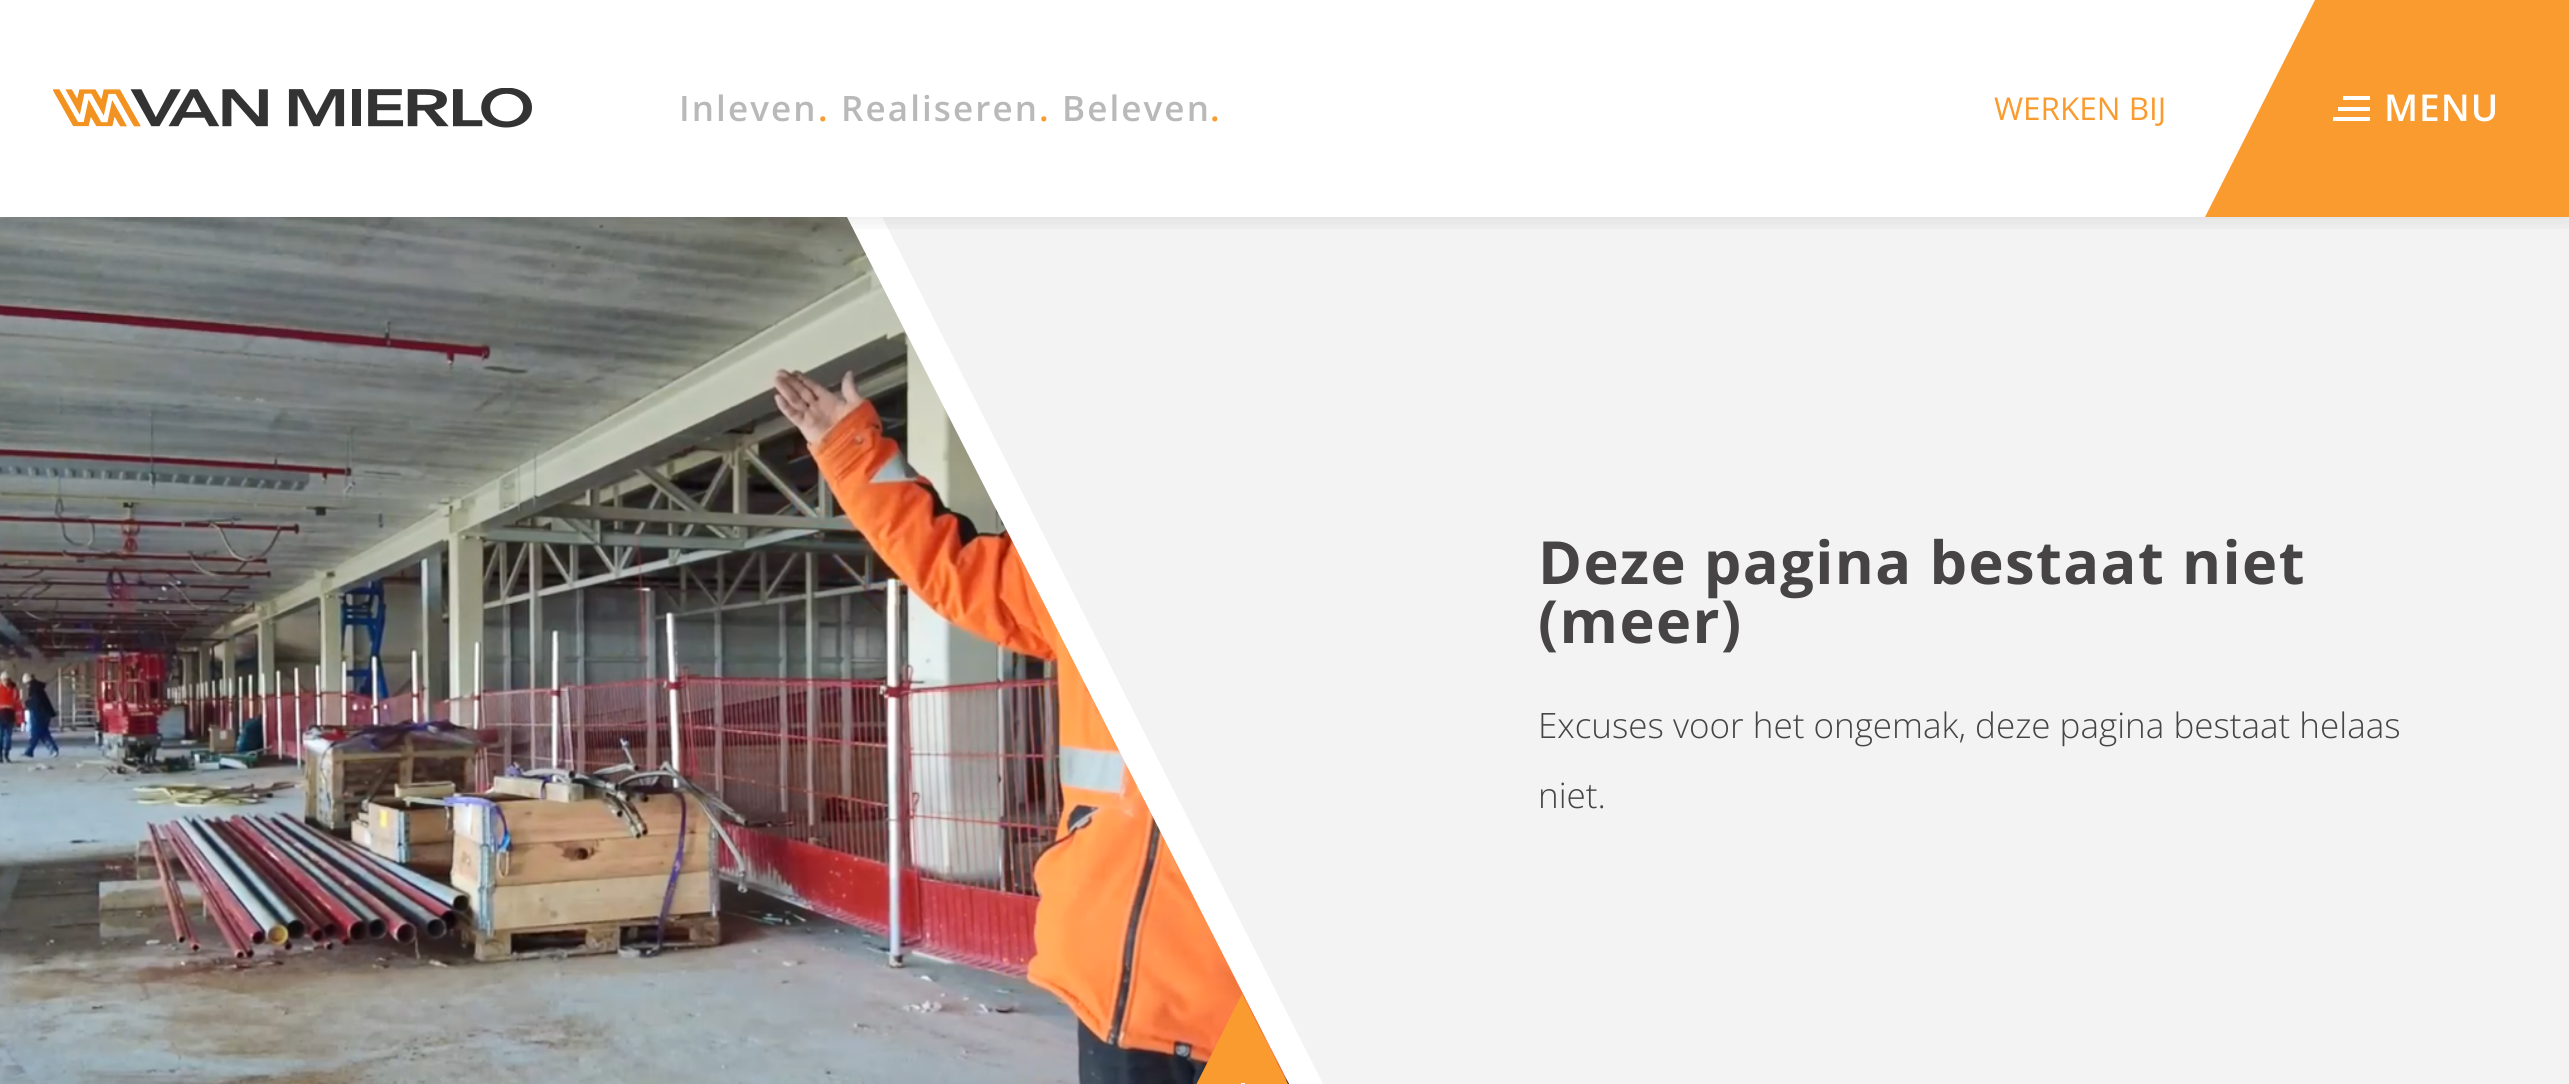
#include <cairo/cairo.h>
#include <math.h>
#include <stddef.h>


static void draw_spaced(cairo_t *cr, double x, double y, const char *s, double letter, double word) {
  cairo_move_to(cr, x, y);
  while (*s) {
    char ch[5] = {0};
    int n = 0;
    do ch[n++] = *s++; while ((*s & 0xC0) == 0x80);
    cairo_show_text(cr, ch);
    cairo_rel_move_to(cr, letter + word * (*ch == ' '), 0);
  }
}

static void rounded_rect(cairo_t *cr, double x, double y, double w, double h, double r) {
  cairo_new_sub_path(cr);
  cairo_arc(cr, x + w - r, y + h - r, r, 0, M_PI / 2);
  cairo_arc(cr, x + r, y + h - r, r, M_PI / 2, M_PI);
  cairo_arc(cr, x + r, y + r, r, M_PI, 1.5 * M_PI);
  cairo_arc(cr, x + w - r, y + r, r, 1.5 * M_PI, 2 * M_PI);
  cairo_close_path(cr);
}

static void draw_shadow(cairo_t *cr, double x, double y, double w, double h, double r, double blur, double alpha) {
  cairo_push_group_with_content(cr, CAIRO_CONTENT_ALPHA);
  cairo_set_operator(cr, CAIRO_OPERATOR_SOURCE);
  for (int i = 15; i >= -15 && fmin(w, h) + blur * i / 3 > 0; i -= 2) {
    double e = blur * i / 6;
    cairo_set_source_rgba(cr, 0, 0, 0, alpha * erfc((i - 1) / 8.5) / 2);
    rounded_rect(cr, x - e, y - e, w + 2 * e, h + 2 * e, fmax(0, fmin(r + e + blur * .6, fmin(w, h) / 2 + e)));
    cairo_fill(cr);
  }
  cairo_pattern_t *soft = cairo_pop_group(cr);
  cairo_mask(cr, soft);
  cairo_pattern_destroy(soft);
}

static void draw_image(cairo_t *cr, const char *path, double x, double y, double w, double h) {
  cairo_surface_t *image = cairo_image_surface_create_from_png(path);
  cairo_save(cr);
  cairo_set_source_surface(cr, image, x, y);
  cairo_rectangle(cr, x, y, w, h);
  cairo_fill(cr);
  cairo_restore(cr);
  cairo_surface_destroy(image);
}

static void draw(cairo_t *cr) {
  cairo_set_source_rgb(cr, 1, 1, 1);
  cairo_paint(cr);
  draw_image(cr, "images/2.png", 0, 217, 1289, 867);
  cairo_set_source_rgb(cr, 243 / 255.0, 243 / 255.0, 243 / 255.0);
  cairo_new_path(cr);
  cairo_move_to(cr, 882, 217);
  cairo_line_to(cr, 2079, 217);
  cairo_line_to(cr, 2569, 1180);
  cairo_line_to(cr, 1372, 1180);
  cairo_close_path(cr);
  cairo_fill(cr);
  cairo_rectangle(cr, 2079, 217, 490, 867);
  cairo_fill(cr);
  cairo_save(cr);
  cairo_rectangle(cr, 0, 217, 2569, 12);
  cairo_clip(cr);
  cairo_set_source_rgb(cr, 0, 0, 0);
  draw_shadow(cr, 0, -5, 2569, 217, 0, 15, 0.16);
  cairo_restore(cr);
  draw_image(cr, "images/1.png", 53, 88, 479, 40);
  cairo_set_source_rgb(cr, 250 / 255.0, 155 / 255.0, 47 / 255.0);
  cairo_rectangle(cr, 2315, 0, 254, 217);
  cairo_fill(cr);
  cairo_new_path(cr);
  cairo_move_to(cr, 2315, 217);
  cairo_line_to(cr, 2205, 217);
  cairo_line_to(cr, 2315, 0);
  cairo_close_path(cr);
  cairo_fill(cr);
  cairo_set_source_rgb(cr, 1, 1, 1);
  cairo_rectangle(cr, 2343, 96, 27, 4);
  cairo_fill(cr);
  cairo_rectangle(cr, 2338, 107, 32, 4);
  cairo_fill(cr);
  cairo_rectangle(cr, 2333, 117, 37, 4);
  cairo_fill(cr);
  cairo_set_source_rgb(cr, 250 / 255.0, 155 / 255.0, 47 / 255.0);
  cairo_new_path(cr);
  cairo_move_to(cr, 1337, 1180);
  cairo_line_to(cr, 1148, 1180);
  cairo_line_to(cr, 1242, 994);
  cairo_close_path(cr);
  cairo_fill(cr);
  cairo_set_source_rgb(cr, 1, 1, 1);
  cairo_new_path(cr);
  cairo_move_to(cr, 1260, 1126);
  cairo_line_to(cr, 1257, 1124);
  cairo_line_to(cr, 1245, 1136);
  cairo_line_to(cr, 1245, 1083);
  cairo_line_to(cr, 1241, 1083);
  cairo_line_to(cr, 1241, 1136);
  cairo_line_to(cr, 1230, 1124);
  cairo_line_to(cr, 1227, 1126);
  cairo_line_to(cr, 1243, 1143);
  cairo_close_path(cr);
  cairo_fill(cr);
  cairo_select_font_face(cr, "Open Sans SemiBold", CAIRO_FONT_SLANT_NORMAL, CAIRO_FONT_WEIGHT_NORMAL);
  cairo_set_font_size(cr, 35);
  cairo_set_source_rgb(cr, 185 / 255.0, 185 / 255.0, 185 / 255.0);
  draw_spaced(cr, 679, 121, "Inleven", 2.1, 0);
  cairo_set_source_rgb(cr, 250 / 255.0, 155 / 255.0, 47 / 255.0);
  draw_spaced(cr, 818, 121, ".", 2.1, 0);
  cairo_set_source_rgb(cr, 185 / 255.0, 185 / 255.0, 185 / 255.0);
  draw_spaced(cr, 841, 121, "Realiseren", 2.1, 0);
  cairo_set_source_rgb(cr, 250 / 255.0, 155 / 255.0, 47 / 255.0);
  draw_spaced(cr, 1039, 121, ".", 2.1, 0);
  cairo_set_source_rgb(cr, 185 / 255.0, 185 / 255.0, 185 / 255.0);
  draw_spaced(cr, 1062, 121, "Beleven", 2.1, 0);
  cairo_set_source_rgb(cr, 250 / 255.0, 155 / 255.0, 47 / 255.0);
  draw_spaced(cr, 1210, 121, ".", 2.1, 0);
  cairo_select_font_face(cr, "Open Sans", CAIRO_FONT_SLANT_NORMAL, CAIRO_FONT_WEIGHT_NORMAL);
  cairo_set_font_size(cr, 31.5);
  cairo_move_to(cr, 1994, 120);
  cairo_show_text(cr, "WERKEN BIJ");
  cairo_select_font_face(cr, "Open Sans SemiBold", CAIRO_FONT_SLANT_NORMAL, CAIRO_FONT_WEIGHT_NORMAL);
  cairo_set_font_size(cr, 37);
  cairo_set_source_rgb(cr, 1, 1, 1);
  draw_spaced(cr, 2384, 121, "MENU", 1, 0);
  cairo_select_font_face(cr, "Open Sans", CAIRO_FONT_SLANT_NORMAL, CAIRO_FONT_WEIGHT_BOLD);
  cairo_set_font_size(cr, 59.5);
  cairo_set_source_rgb(cr, 70 / 255.0, 68 / 255.0, 68 / 255.0);
  draw_spaced(cr, 1538, 584, "Deze pagina bestaat niet", 1.4, 0);
  draw_spaced(cr, 1538, 643, "(meer)", 1.4, 0);
  cairo_select_font_face(cr, "Open Sans Light", CAIRO_FONT_SLANT_NORMAL, CAIRO_FONT_WEIGHT_NORMAL);
  cairo_set_font_size(cr, 35);
  cairo_move_to(cr, 1538, 738);
  cairo_show_text(cr, "Excuses voor het ongemak, deze pagina bestaat helaas");
  cairo_move_to(cr, 1538, 808);
  cairo_show_text(cr, "niet.");
}

int main(void) {
  cairo_surface_t *surface = cairo_image_surface_create(CAIRO_FORMAT_RGB24, 2569, 1084);
  cairo_t *cr = cairo_create(surface);
  cairo_font_options_t *options = cairo_font_options_create();
  cairo_font_options_set_hint_metrics(options, CAIRO_HINT_METRICS_OFF);
  cairo_font_options_set_hint_style(options, CAIRO_HINT_STYLE_NONE);
  cairo_set_font_options(cr, options);
  cairo_set_miter_limit(cr, 4);
  draw(cr);
  cairo_surface_write_to_png(surface, "out.png");
  cairo_font_options_destroy(options);
  cairo_destroy(cr);
  cairo_surface_destroy(surface);
  return 0;
}
